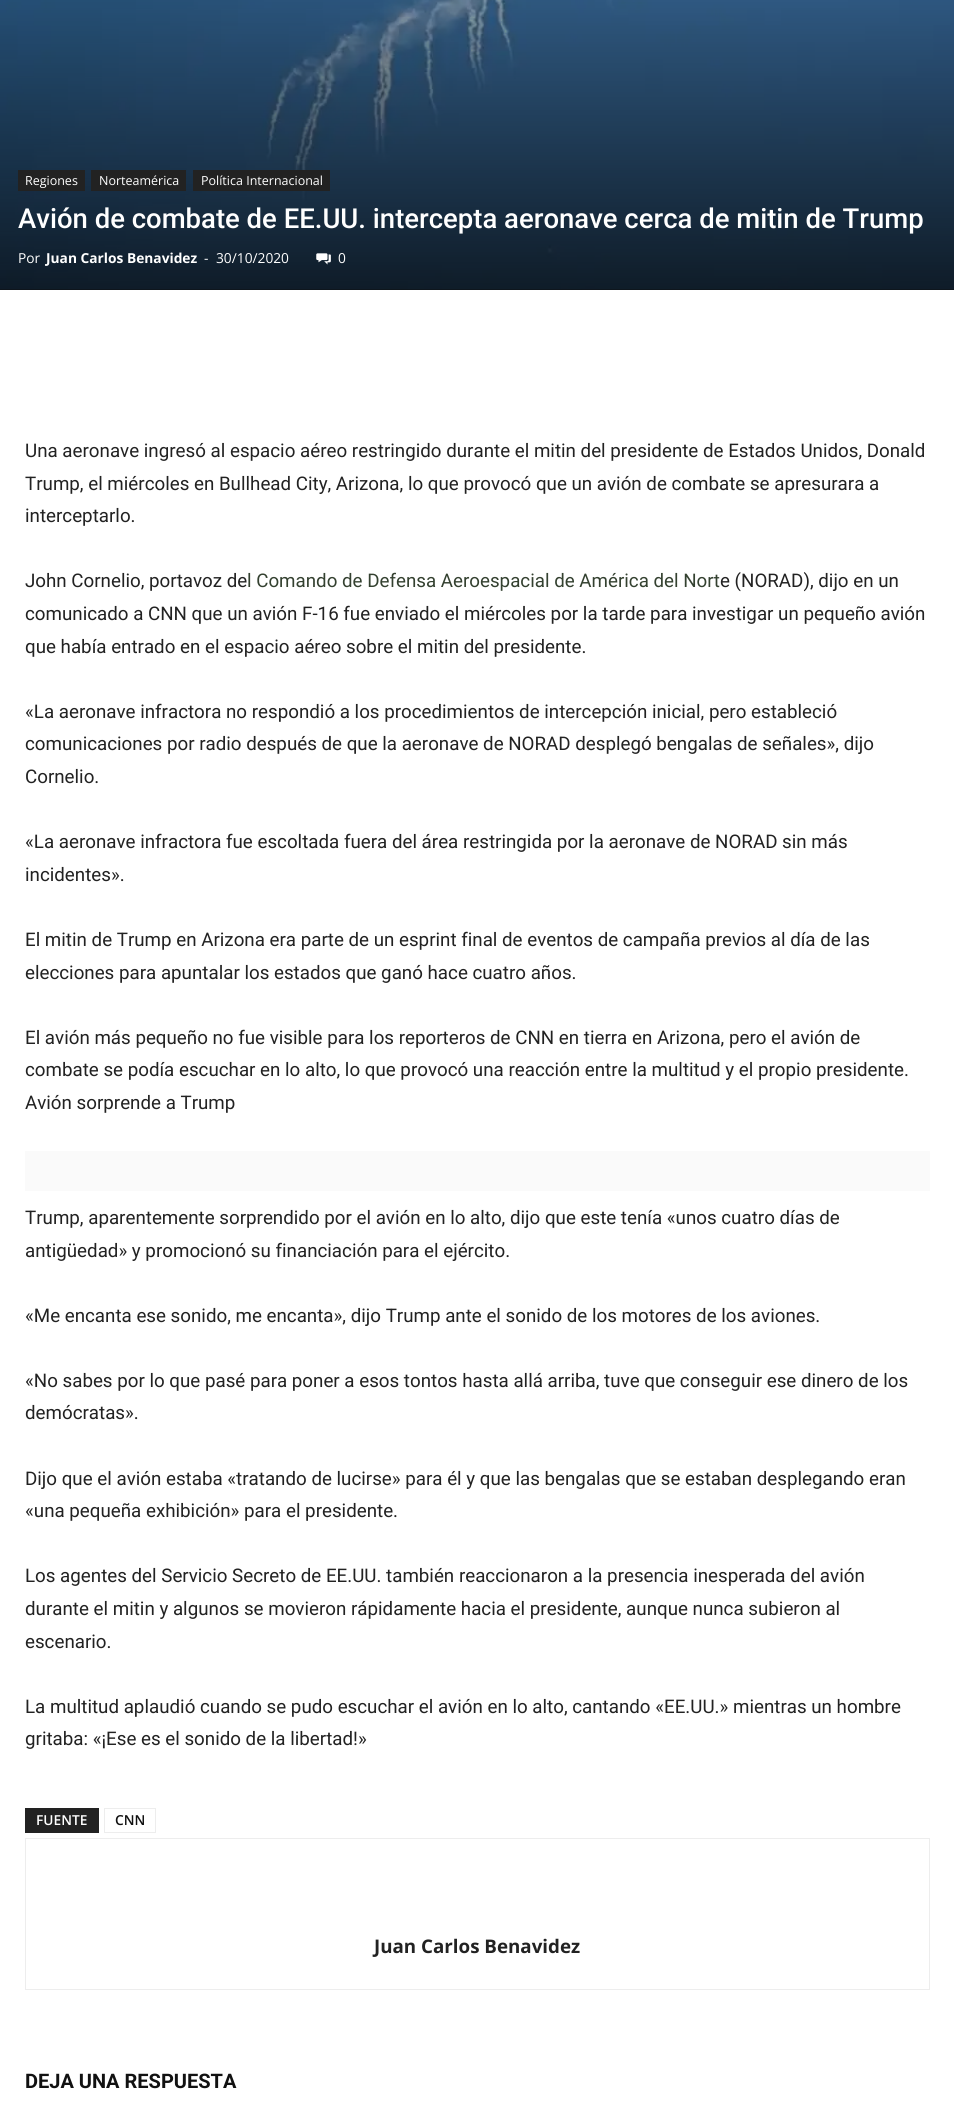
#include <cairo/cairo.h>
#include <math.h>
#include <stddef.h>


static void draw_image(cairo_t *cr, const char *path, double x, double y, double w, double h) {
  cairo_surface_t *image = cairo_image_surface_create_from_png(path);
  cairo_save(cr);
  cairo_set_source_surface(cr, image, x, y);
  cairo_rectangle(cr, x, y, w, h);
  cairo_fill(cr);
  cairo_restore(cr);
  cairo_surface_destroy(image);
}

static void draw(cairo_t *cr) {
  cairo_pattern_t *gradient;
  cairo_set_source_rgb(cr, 1, 1, 1);
  cairo_paint(cr);
  cairo_set_source_rgb(cr, 68 / 255.0, 68 / 255.0, 68 / 255.0);
  cairo_rectangle(cr, 0, 289, 954, 1);
  cairo_fill(cr);
  draw_image(cr, "images/1.png", 0, 0, 954, 290);
  gradient = cairo_pattern_create_linear(478, -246, 478, 290);
  cairo_pattern_add_color_stop_rgba(gradient, 0, 0, 0, 0, 0);
  cairo_pattern_add_color_stop_rgba(gradient, 1, 0, 0, 0, 0.8);
  cairo_set_source(cr, gradient);
  cairo_pattern_destroy(gradient);
  cairo_rectangle(cr, 0, 0, 954, 290);
  cairo_fill(cr);
  cairo_set_source_rgb(cr, 34 / 255.0, 34 / 255.0, 34 / 255.0);
  cairo_rectangle(cr, 18, 170, 67, 21);
  cairo_fill(cr);
  cairo_rectangle(cr, 91, 170, 95, 21);
  cairo_fill(cr);
  cairo_rectangle(cr, 193, 170, 137, 21);
  cairo_fill(cr);
  draw_image(cr, "images/2.png", 316, 253, 15, 12);
  cairo_set_source_rgb(cr, 250 / 255.0, 250 / 255.0, 250 / 255.0);
  cairo_rectangle(cr, 25, 1151, 905, 40);
  cairo_fill(cr);
  cairo_set_source_rgb(cr, 34 / 255.0, 34 / 255.0, 34 / 255.0);
  cairo_rectangle(cr, 25, 1808, 74, 25);
  cairo_fill(cr);
  cairo_rectangle(cr, 104.5, 1808.5, 51, 24);
  cairo_set_source_rgb(cr, 237 / 255.0, 237 / 255.0, 237 / 255.0);
  cairo_set_line_width(cr, 1);
  cairo_stroke(cr);
  cairo_rectangle(cr, 25.5, 1838.5, 904, 151);
  cairo_stroke(cr);
  cairo_select_font_face(cr, "Open Sans", CAIRO_FONT_SLANT_NORMAL, CAIRO_FONT_WEIGHT_NORMAL);
  cairo_set_font_size(cr, 12.5);
  cairo_set_source_rgb(cr, 1, 1, 1);
  cairo_move_to(cr, 25, 185);
  cairo_show_text(cr, "Regiones");
  cairo_move_to(cr, 99, 185);
  cairo_show_text(cr, "Norteamérica");
  cairo_move_to(cr, 201, 185);
  cairo_show_text(cr, "Política Internacional");
  cairo_select_font_face(cr, "Roboto Medium", CAIRO_FONT_SLANT_NORMAL, CAIRO_FONT_WEIGHT_NORMAL);
  cairo_set_font_size(cr, 27.5);
  cairo_move_to(cr, 18, 228);
  cairo_show_text(cr, "Avión de combate de EE.UU. intercepta aeronave cerca de mitin de Trump");
  cairo_select_font_face(cr, "Open Sans", CAIRO_FONT_SLANT_NORMAL, CAIRO_FONT_WEIGHT_NORMAL);
  cairo_set_font_size(cr, 13.75);
  cairo_move_to(cr, 18, 263);
  cairo_show_text(cr, "Por");
  cairo_select_font_face(cr, "Open Sans", CAIRO_FONT_SLANT_NORMAL, CAIRO_FONT_WEIGHT_BOLD);
  cairo_move_to(cr, 46, 263);
  cairo_show_text(cr, "Juan Carlos Benavidez");
  cairo_select_font_face(cr, "Open Sans", CAIRO_FONT_SLANT_NORMAL, CAIRO_FONT_WEIGHT_NORMAL);
  cairo_move_to(cr, 204, 263);
  cairo_show_text(cr, "-");
  cairo_move_to(cr, 216, 263);
  cairo_show_text(cr, "30/10/2020");
  cairo_move_to(cr, 338, 263);
  cairo_show_text(cr, "0");
  cairo_select_font_face(cr, "Roboto", CAIRO_FONT_SLANT_NORMAL, CAIRO_FONT_WEIGHT_NORMAL);
  cairo_set_font_size(cr, 18.75);
  cairo_set_source_rgb(cr, 34 / 255.0, 34 / 255.0, 34 / 255.0);
  cairo_move_to(cr, 25, 457);
  cairo_show_text(cr, "Una aeronave ingresó al espacio aéreo restringido durante el mitin del presidente de Estados Unidos, Donald");
  cairo_move_to(cr, 25, 490);
  cairo_show_text(cr, "Trump, el miércoles en Bullhead City, Arizona, lo que provocó que un avión de combate se apresurara a");
  cairo_move_to(cr, 25, 522);
  cairo_show_text(cr, "interceptarlo.");
  cairo_move_to(cr, 25, 587);
  cairo_show_text(cr, "John Cornelio, portavoz de");
  cairo_set_source_rgb(cr, 52 / 255.0, 65 / 255.0, 48 / 255.0);
  cairo_move_to(cr, 247, 587);
  cairo_show_text(cr, "l Comando de Defensa Aeroespacial de América del Nort");
  cairo_set_source_rgb(cr, 34 / 255.0, 34 / 255.0, 34 / 255.0);
  cairo_move_to(cr, 720, 587);
  cairo_show_text(cr, "e (NORAD), dijo en un");
  cairo_move_to(cr, 25, 620);
  cairo_show_text(cr, "comunicado a CNN que un avión F-16 fue enviado el miércoles por la tarde para investigar un pequeño avión");
  cairo_move_to(cr, 25, 653);
  cairo_show_text(cr, "que había entrado en el espacio aéreo sobre el mitin del presidente.");
  cairo_move_to(cr, 25, 718);
  cairo_show_text(cr, "«La aeronave infractora no respondió a los procedimientos de intercepción inicial, pero estableció");
  cairo_move_to(cr, 25, 750);
  cairo_show_text(cr, "comunicaciones por radio después de que la aeronave de NORAD desplegó bengalas de señales», dijo");
  cairo_move_to(cr, 25, 783);
  cairo_show_text(cr, "Cornelio.");
  cairo_move_to(cr, 25, 848);
  cairo_show_text(cr, "«La aeronave infractora fue escoltada fuera del área restringida por la aeronave de NORAD sin más");
  cairo_move_to(cr, 25, 881);
  cairo_show_text(cr, "incidentes».");
  cairo_move_to(cr, 25, 946);
  cairo_show_text(cr, "El mitin de Trump en Arizona era parte de un esprint final de eventos de campaña previos al día de las");
  cairo_move_to(cr, 25, 979);
  cairo_show_text(cr, "elecciones para apuntalar los estados que ganó hace cuatro años.");
  cairo_move_to(cr, 25, 1044);
  cairo_show_text(cr, "El avión más pequeño no fue visible para los reporteros de CNN en tierra en Arizona, pero el avión de");
  cairo_move_to(cr, 25, 1076);
  cairo_show_text(cr, "combate se podía escuchar en lo alto, lo que provocó una reacción entre la multitud y el propio presidente.");
  cairo_move_to(cr, 25, 1109);
  cairo_show_text(cr, "Avión sorprende a Trump");
  cairo_move_to(cr, 25, 1224);
  cairo_show_text(cr, "Trump, aparentemente sorprendido por el avión en lo alto, dijo que este tenía «unos cuatro días de");
  cairo_move_to(cr, 25, 1257);
  cairo_show_text(cr, "antigüedad» y promocionó su financiación para el ejército.");
  cairo_move_to(cr, 25, 1322);
  cairo_show_text(cr, "«Me encanta ese sonido, me encanta», dijo Trump ante el sonido de los motores de los aviones.");
  cairo_move_to(cr, 25, 1387);
  cairo_show_text(cr, "«No sabes por lo que pasé para poner a esos tontos hasta allá arriba, tuve que conseguir ese dinero de los");
  cairo_move_to(cr, 25, 1419);
  cairo_show_text(cr, "demócratas».");
  cairo_move_to(cr, 25, 1485);
  cairo_show_text(cr, "Dijo que el avión estaba «tratando de lucirse» para él y que las bengalas que se estaban desplegando eran");
  cairo_move_to(cr, 25, 1517);
  cairo_show_text(cr, "«una pequeña exhibición» para el presidente.");
  cairo_move_to(cr, 25, 1582);
  cairo_show_text(cr, "Los agentes del Servicio Secreto de EE.UU. también reaccionaron a la presencia inesperada del avión");
  cairo_move_to(cr, 25, 1615);
  cairo_show_text(cr, "durante el mitin y algunos se movieron rápidamente hacia el presidente, aunque nunca subieron al");
  cairo_move_to(cr, 25, 1648);
  cairo_show_text(cr, "escenario.");
  cairo_move_to(cr, 25, 1713);
  cairo_show_text(cr, "La multitud aplaudió cuando se pudo escuchar el avión en lo alto, cantando «EE.UU.» mientras un hombre");
  cairo_move_to(cr, 25, 1745);
  cairo_show_text(cr, "gritaba: «¡Ese es el sonido de la libertad!»");
  cairo_select_font_face(cr, "Open Sans SemiBold", CAIRO_FONT_SLANT_NORMAL, CAIRO_FONT_WEIGHT_NORMAL);
  cairo_set_font_size(cr, 13.75);
  cairo_set_source_rgb(cr, 1, 1, 1);
  cairo_move_to(cr, 36, 1825);
  cairo_show_text(cr, "FUENTE");
  cairo_set_source_rgb(cr, 17 / 255.0, 17 / 255.0, 17 / 255.0);
  cairo_move_to(cr, 115, 1825);
  cairo_show_text(cr, "CNN");
  cairo_select_font_face(cr, "Open Sans", CAIRO_FONT_SLANT_NORMAL, CAIRO_FONT_WEIGHT_BOLD);
  cairo_set_font_size(cr, 18.75);
  cairo_set_source_rgb(cr, 34 / 255.0, 34 / 255.0, 34 / 255.0);
  cairo_move_to(cr, 374, 1953);
  cairo_show_text(cr, "Juan Carlos Benavidez");
  cairo_select_font_face(cr, "Roboto", CAIRO_FONT_SLANT_NORMAL, CAIRO_FONT_WEIGHT_BOLD);
  cairo_set_font_size(cr, 20);
  cairo_set_source_rgb(cr, 17 / 255.0, 17 / 255.0, 17 / 255.0);
  cairo_move_to(cr, 25, 2088);
  cairo_show_text(cr, "DEJA UNA RESPUESTA");
}

int main(void) {
  cairo_surface_t *surface = cairo_image_surface_create(CAIRO_FORMAT_RGB24, 954, 2102);
  cairo_t *cr = cairo_create(surface);
  cairo_font_options_t *options = cairo_font_options_create();
  cairo_font_options_set_hint_metrics(options, CAIRO_HINT_METRICS_OFF);
  cairo_font_options_set_hint_style(options, CAIRO_HINT_STYLE_NONE);
  cairo_set_font_options(cr, options);
  cairo_set_miter_limit(cr, 4);
  draw(cr);
  cairo_surface_write_to_png(surface, "out.png");
  cairo_font_options_destroy(options);
  cairo_destroy(cr);
  cairo_surface_destroy(surface);
  return 0;
}
